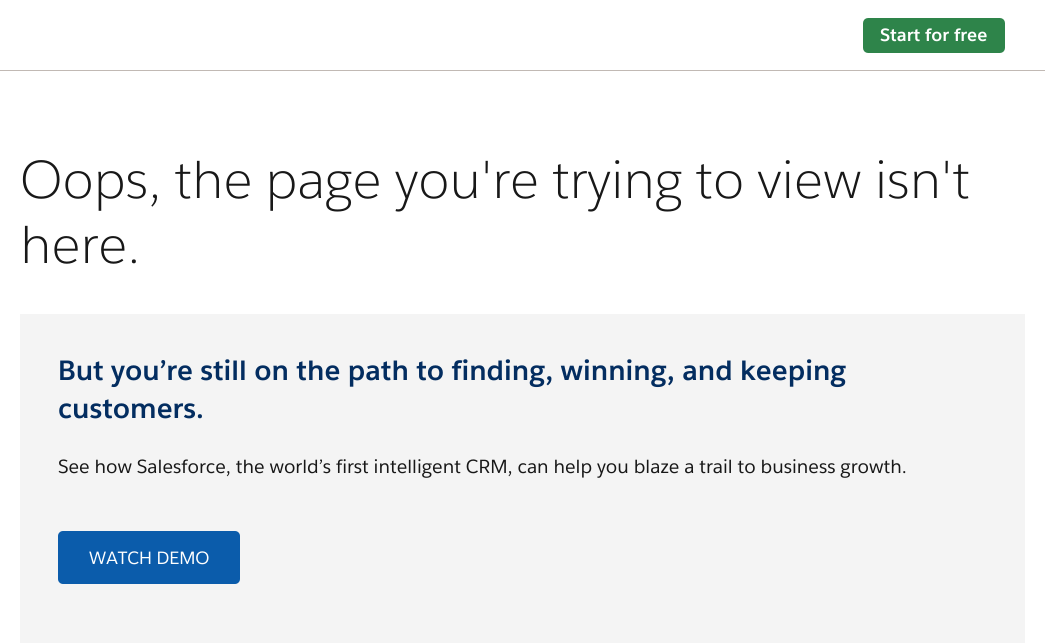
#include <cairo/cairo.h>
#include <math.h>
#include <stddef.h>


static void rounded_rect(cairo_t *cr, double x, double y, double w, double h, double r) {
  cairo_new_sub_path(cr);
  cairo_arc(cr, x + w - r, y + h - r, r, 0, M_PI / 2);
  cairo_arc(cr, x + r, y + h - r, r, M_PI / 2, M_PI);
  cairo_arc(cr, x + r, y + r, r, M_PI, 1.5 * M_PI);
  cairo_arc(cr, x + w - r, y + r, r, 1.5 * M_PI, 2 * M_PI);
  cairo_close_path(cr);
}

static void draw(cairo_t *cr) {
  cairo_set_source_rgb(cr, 1, 1, 1);
  cairo_paint(cr);
  cairo_set_source_rgb(cr, 46 / 255.0, 132 / 255.0, 74 / 255.0);
  rounded_rect(cr, 864.5, 19.5, 139, 32, 3.5);
  cairo_fill_preserve(cr);
  cairo_set_line_width(cr, 3);
  cairo_stroke(cr);
  cairo_set_source_rgb(cr, 193 / 255.0, 185 / 255.0, 180 / 255.0);
  cairo_rectangle(cr, 0, 70, 1045, 1);
  cairo_fill(cr);
  cairo_set_source_rgb(cr, 244 / 255.0, 244 / 255.0, 244 / 255.0);
  cairo_rectangle(cr, 20, 314, 1005, 329);
  cairo_fill(cr);
  cairo_set_source_rgb(cr, 11 / 255.0, 92 / 255.0, 171 / 255.0);
  rounded_rect(cr, 58, 531, 182, 53, 5);
  cairo_fill(cr);
  cairo_select_font_face(cr, "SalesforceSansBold", CAIRO_FONT_SLANT_NORMAL, CAIRO_FONT_WEIGHT_BOLD);
  cairo_set_font_size(cr, 17.5);
  cairo_set_source_rgb(cr, 1, 1, 1);
  cairo_move_to(cr, 880, 41);
  cairo_show_text(cr, "Start for free");
  cairo_select_font_face(cr, "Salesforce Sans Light", CAIRO_FONT_SLANT_NORMAL, CAIRO_FONT_WEIGHT_NORMAL);
  cairo_set_font_size(cr, 52.5);
  cairo_set_source_rgb(cr, 24 / 255.0, 24 / 255.0, 24 / 255.0);
  cairo_move_to(cr, 20, 198);
  cairo_show_text(cr, "Oops, the page you're trying to view isn't");
  cairo_move_to(cr, 20, 263);
  cairo_show_text(cr, "here.");
  cairo_select_font_face(cr, "SalesforceSansBold", CAIRO_FONT_SLANT_NORMAL, CAIRO_FONT_WEIGHT_BOLD);
  cairo_set_font_size(cr, 27.5);
  cairo_set_source_rgb(cr, 3 / 255.0, 45 / 255.0, 96 / 255.0);
  cairo_move_to(cr, 58, 380);
  cairo_show_text(cr, "But you’re still on the path to finding, winning, and keeping");
  cairo_move_to(cr, 58, 418);
  cairo_show_text(cr, "customers.");
  cairo_select_font_face(cr, "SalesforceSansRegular", CAIRO_FONT_SLANT_NORMAL, CAIRO_FONT_WEIGHT_NORMAL);
  cairo_set_font_size(cr, 18.75);
  cairo_set_source_rgb(cr, 24 / 255.0, 24 / 255.0, 24 / 255.0);
  cairo_move_to(cr, 58, 473);
  cairo_show_text(cr, "See how Salesforce, the world’s first intelligent CRM, can help you blaze a trail to business growth.");
  cairo_set_font_size(cr, 17.5);
  cairo_set_source_rgb(cr, 1, 1, 1);
  cairo_move_to(cr, 89, 564);
  cairo_show_text(cr, "WATCH DEMO");
}

int main(void) {
  cairo_surface_t *surface = cairo_image_surface_create(CAIRO_FORMAT_RGB24, 1045, 643);
  cairo_t *cr = cairo_create(surface);
  cairo_font_options_t *options = cairo_font_options_create();
  cairo_font_options_set_hint_metrics(options, CAIRO_HINT_METRICS_OFF);
  cairo_font_options_set_hint_style(options, CAIRO_HINT_STYLE_NONE);
  cairo_set_font_options(cr, options);
  cairo_set_miter_limit(cr, 4);
  draw(cr);
  cairo_surface_write_to_png(surface, "out.png");
  cairo_font_options_destroy(options);
  cairo_destroy(cr);
  cairo_surface_destroy(surface);
  return 0;
}
